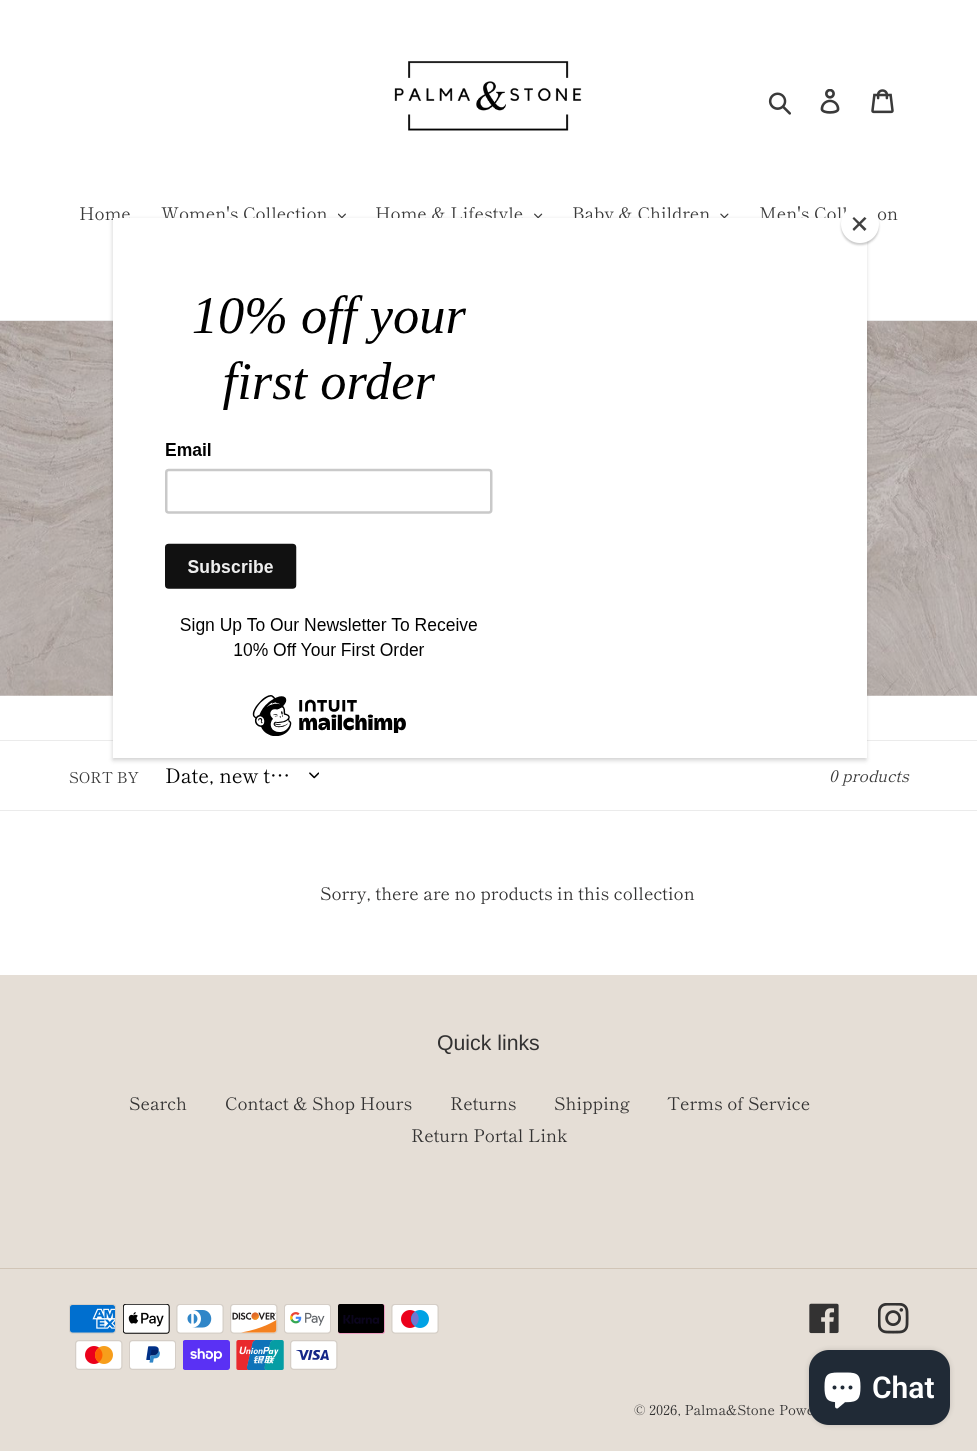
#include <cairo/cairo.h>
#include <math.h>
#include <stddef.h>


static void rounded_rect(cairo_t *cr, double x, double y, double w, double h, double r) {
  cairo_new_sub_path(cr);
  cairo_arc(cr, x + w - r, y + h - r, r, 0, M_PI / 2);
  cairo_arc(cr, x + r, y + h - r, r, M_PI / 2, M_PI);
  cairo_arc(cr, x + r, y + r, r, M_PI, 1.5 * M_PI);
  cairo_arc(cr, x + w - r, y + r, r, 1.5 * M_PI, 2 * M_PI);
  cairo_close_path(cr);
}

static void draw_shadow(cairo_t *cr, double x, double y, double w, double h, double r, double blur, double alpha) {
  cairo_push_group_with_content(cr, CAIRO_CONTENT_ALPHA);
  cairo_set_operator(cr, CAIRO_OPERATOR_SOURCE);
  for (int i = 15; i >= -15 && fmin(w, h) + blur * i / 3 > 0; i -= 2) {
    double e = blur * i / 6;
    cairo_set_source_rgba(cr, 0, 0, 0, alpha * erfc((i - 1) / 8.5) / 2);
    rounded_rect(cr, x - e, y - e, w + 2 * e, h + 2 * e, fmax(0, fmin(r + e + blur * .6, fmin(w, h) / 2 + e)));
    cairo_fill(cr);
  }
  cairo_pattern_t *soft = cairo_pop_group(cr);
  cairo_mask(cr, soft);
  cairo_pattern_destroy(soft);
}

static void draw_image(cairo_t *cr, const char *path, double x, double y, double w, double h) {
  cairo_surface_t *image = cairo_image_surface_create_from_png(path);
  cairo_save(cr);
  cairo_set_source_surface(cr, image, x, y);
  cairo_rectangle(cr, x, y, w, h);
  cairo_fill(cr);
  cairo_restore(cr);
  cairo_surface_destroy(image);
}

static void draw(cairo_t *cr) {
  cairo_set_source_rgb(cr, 1, 1, 1);
  cairo_paint(cr);
  cairo_set_source_rgb(cr, 235 / 255.0, 235 / 255.0, 235 / 255.0);
  cairo_rectangle(cr, 0, 320, 977, 1);
  cairo_fill(cr);
  draw_image(cr, "images/6.png", 338, 213, 8, 5);
  draw_image(cr, "images/7.png", 534, 213, 9, 5);
  draw_image(cr, "images/8.png", 720, 213, 9, 5);
  draw_image(cr, "images/9.png", 0, 321, 977, 375);
  cairo_rectangle(cr, 0, 740, 977, 1);
  cairo_fill(cr);
  cairo_set_source_rgb(cr, 0, 0, 0);
  draw_shadow(cr, 113, 220, 753, 540, 0, 2.5, 0.2);
  draw_image(cr, "images/2.png", 394, 61, 188, 70);
  draw_image(cr, "images/3.png", 768, 92, 23, 23);
  draw_image(cr, "images/4.png", 820, 89, 20, 25);
  draw_image(cr, "images/5.png", 871, 89, 23, 25);
  cairo_set_source_rgb(cr, 235 / 255.0, 235 / 255.0, 235 / 255.0);
  cairo_rectangle(cr, 0, 810, 977, 1);
  cairo_fill(cr);
  draw_image(cr, "images/10.png", 309, 772, 10, 7);
  cairo_set_source_rgb(cr, 229 / 255.0, 222 / 255.0, 214 / 255.0);
  cairo_rectangle(cr, 0, 975, 977, 476);
  cairo_fill(cr);
  cairo_set_source_rgb(cr, 209 / 255.0, 197 / 255.0, 183 / 255.0);
  cairo_rectangle(cr, 0, 1268, 977, 1);
  cairo_fill(cr);
  draw_image(cr, "images/11.png", 69, 1304, 47, 30);
  draw_image(cr, "images/12.png", 123, 1304, 47, 30);
  draw_image(cr, "images/13.png", 176, 1304, 48, 30);
  draw_image(cr, "images/14.png", 230, 1304, 48, 30);
  draw_image(cr, "images/15.png", 284, 1304, 47, 30);
  draw_image(cr, "images/16.png", 338, 1304, 47, 30);
  draw_image(cr, "images/17.png", 391, 1304, 48, 30);
  draw_image(cr, "images/18.png", 75, 1340, 48, 30);
  draw_image(cr, "images/19.png", 129, 1340, 47, 30);
  draw_image(cr, "images/20.png", 183, 1340, 47, 30);
  draw_image(cr, "images/21.png", 236, 1340, 48, 30);
  draw_image(cr, "images/22.png", 290, 1340, 48, 30);
  draw_image(cr, "images/23.png", 809, 1303, 30, 31);
  draw_image(cr, "images/24.png", 878, 1303, 31, 31);
  cairo_set_source_rgb(cr, 0, 0, 0);
  draw_shadow(cr, 809, 1350, 141, 75, 20, 3, 0.15);
  cairo_select_font_face(cr, "Shippori Mincho", CAIRO_FONT_SLANT_NORMAL, CAIRO_FONT_WEIGHT_NORMAL);
  cairo_set_font_size(cr, 17.5);
  cairo_set_source_rgb(cr, 58 / 255.0, 58 / 255.0, 58 / 255.0);
  cairo_move_to(cr, 79, 220);
  cairo_show_text(cr, "Home");
  cairo_move_to(cr, 161, 220);
  cairo_show_text(cr, "Women's Collection");
  cairo_move_to(cr, 375, 220);
  cairo_show_text(cr, "Home & Lifestyle");
  cairo_move_to(cr, 572, 220);
  cairo_show_text(cr, "Baby & Children");
  cairo_move_to(cr, 759, 220);
  cairo_show_text(cr, "Men's Coll");
  draw_image(cr, "images/1.png", 113, 218, 754, 540);
  cairo_set_source_rgb(cr, 0, 0, 0);
  draw_shadow(cr, 841, 208, 38, 37, 18.5, 1, 0.2);
  cairo_set_source_rgb(cr, 58 / 255.0, 58 / 255.0, 58 / 255.0);
  cairo_move_to(cr, 877, 220);
  cairo_show_text(cr, "on");
  cairo_set_source_rgb(cr, 1, 1, 1);
  cairo_new_path(cr);
  cairo_arc(cr, 860, 224, 19, 0, 2 * M_PI);
  cairo_fill(cr);
  cairo_set_source_rgb(cr, 65 / 255.0, 65 / 255.0, 65 / 255.0);
  cairo_new_path(cr);
  cairo_move_to(cr, 864.5, 217);
  cairo_line_to(cr, 866.5, 218.5);
  cairo_line_to(cr, 854, 231);
  cairo_line_to(cr, 852.5, 229);
  cairo_close_path(cr);
  cairo_fill(cr);
  cairo_new_path(cr);
  cairo_move_to(cr, 852.5, 218.5);
  cairo_line_to(cr, 854, 217);
  cairo_line_to(cr, 866.5, 229);
  cairo_line_to(cr, 864.5, 231);
  cairo_close_path(cr);
  cairo_fill(cr);
  cairo_set_font_size(cr, 15);
  cairo_set_source_rgb(cr, 58 / 255.0, 58 / 255.0, 58 / 255.0);
  cairo_move_to(cr, 69, 783);
  cairo_show_text(cr, "SORT BY");
  cairo_set_font_size(cr, 20);
  cairo_set_source_rgb(cr, 0, 0, 0);
  cairo_move_to(cr, 165, 783);
  cairo_show_text(cr, "Date, new t…");
  cairo_select_font_face(cr, "Shippori Mincho", CAIRO_FONT_SLANT_ITALIC, CAIRO_FONT_WEIGHT_NORMAL);
  cairo_set_font_size(cr, 16.25);
  cairo_set_source_rgb(cr, 58 / 255.0, 58 / 255.0, 58 / 255.0);
  cairo_move_to(cr, 829, 782);
  cairo_show_text(cr, "0 products");
  cairo_select_font_face(cr, "Shippori Mincho", CAIRO_FONT_SLANT_NORMAL, CAIRO_FONT_WEIGHT_NORMAL);
  cairo_set_font_size(cr, 17.5);
  cairo_set_source_rgb(cr, 51 / 255.0, 50 / 255.0, 50 / 255.0);
  cairo_move_to(cr, 320, 900);
  cairo_show_text(cr, "Sorry, there are no products in this collection");
  cairo_select_font_face(cr, "Arimo", CAIRO_FONT_SLANT_NORMAL, CAIRO_FONT_WEIGHT_NORMAL);
  cairo_set_font_size(cr, 21.25);
  cairo_move_to(cr, 437, 1050);
  cairo_show_text(cr, "Quick links");
  cairo_select_font_face(cr, "Shippori Mincho", CAIRO_FONT_SLANT_NORMAL, CAIRO_FONT_WEIGHT_NORMAL);
  cairo_set_font_size(cr, 17.5);
  cairo_move_to(cr, 129, 1110);
  cairo_show_text(cr, "Search");
  cairo_move_to(cr, 225, 1110);
  cairo_show_text(cr, "Contact & Shop Hours");
  cairo_move_to(cr, 450, 1110);
  cairo_show_text(cr, "Returns");
  cairo_move_to(cr, 554, 1110);
  cairo_show_text(cr, "Shipping");
  cairo_move_to(cr, 667, 1110);
  cairo_show_text(cr, "Terms of Service");
  cairo_move_to(cr, 411, 1142);
  cairo_show_text(cr, "Return Portal Link");
  cairo_set_font_size(cr, 13.75);
  cairo_move_to(cr, 634, 1415);
  cairo_show_text(cr, "© 2026, Palma&Stone");
  cairo_move_to(cr, 779, 1415);
  cairo_show_text(cr, "Powe");
  cairo_set_source_rgb(cr, 32 / 255.0, 42 / 255.0, 54 / 255.0);
  rounded_rect(cr, 809, 1350, 141, 75, 20);
  cairo_fill(cr);
  draw_image(cr, "images/25.png", 824, 1372, 37, 37);
  cairo_select_font_face(cr, "Roboto SemiBold", CAIRO_FONT_SLANT_NORMAL, CAIRO_FONT_WEIGHT_NORMAL);
  cairo_set_font_size(cr, 30);
  cairo_set_source_rgb(cr, 1, 1, 1);
  cairo_move_to(cr, 872, 1398);
  cairo_show_text(cr, "Chat");
}

int main(void) {
  cairo_surface_t *surface = cairo_image_surface_create(CAIRO_FORMAT_RGB24, 977, 1451);
  cairo_t *cr = cairo_create(surface);
  cairo_font_options_t *options = cairo_font_options_create();
  cairo_font_options_set_hint_metrics(options, CAIRO_HINT_METRICS_OFF);
  cairo_font_options_set_hint_style(options, CAIRO_HINT_STYLE_NONE);
  cairo_set_font_options(cr, options);
  cairo_set_miter_limit(cr, 4);
  draw(cr);
  cairo_surface_write_to_png(surface, "out.png");
  cairo_font_options_destroy(options);
  cairo_destroy(cr);
  cairo_surface_destroy(surface);
  return 0;
}
